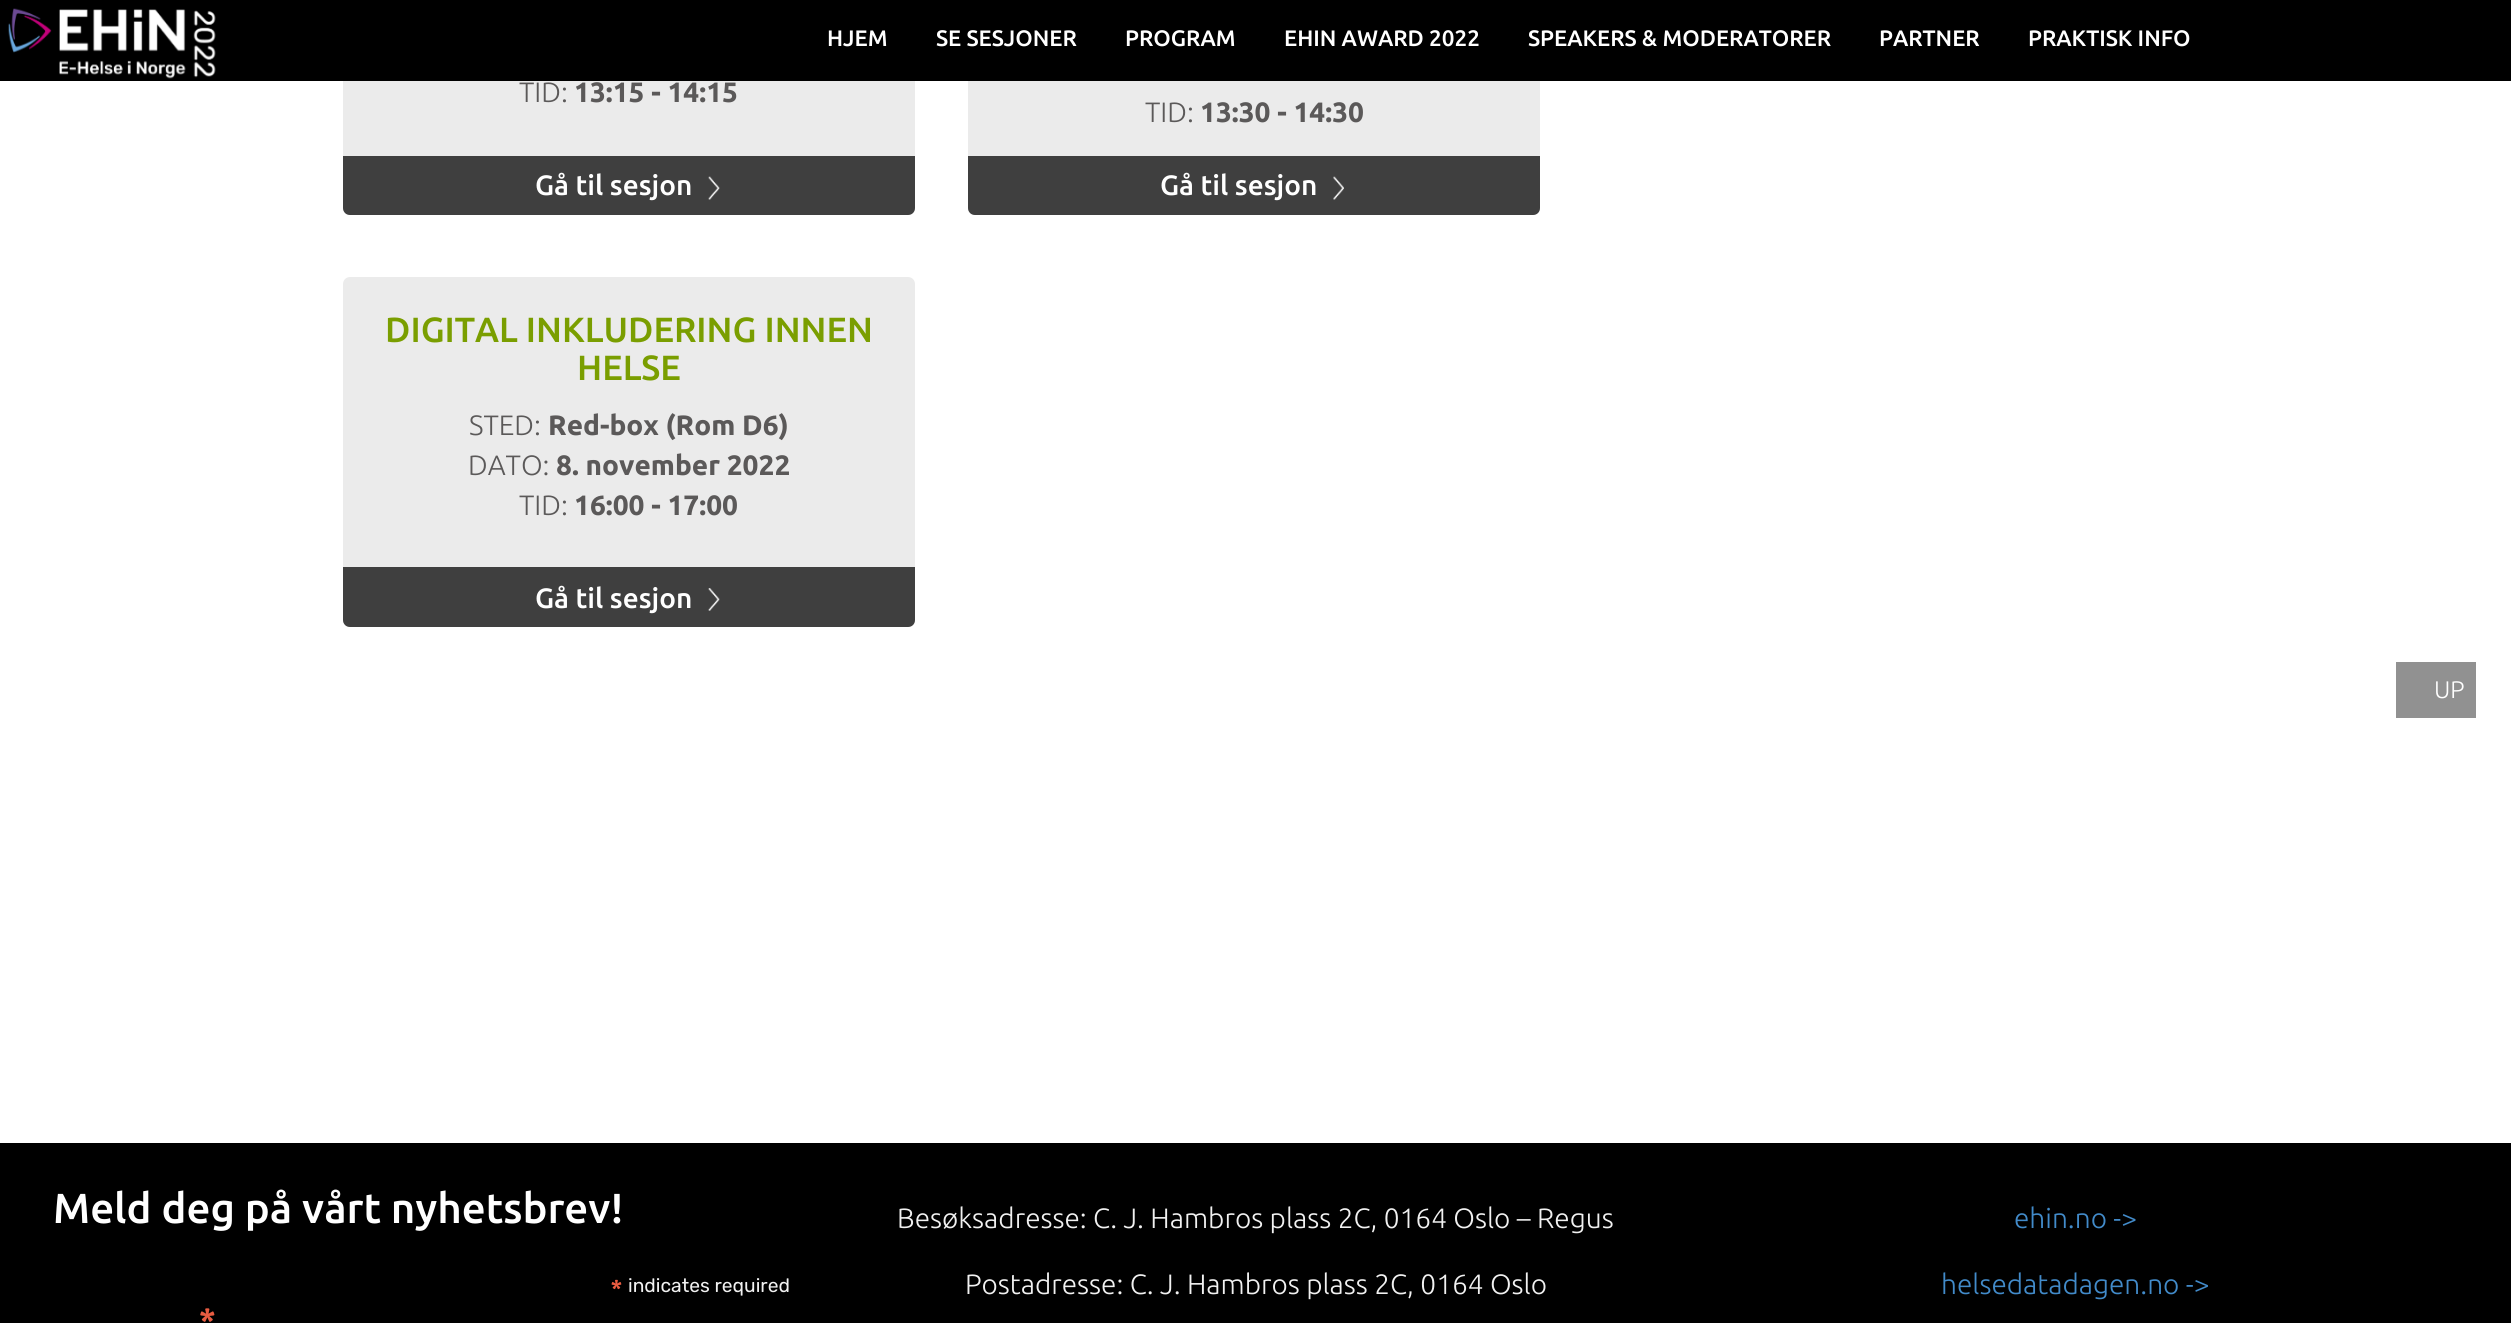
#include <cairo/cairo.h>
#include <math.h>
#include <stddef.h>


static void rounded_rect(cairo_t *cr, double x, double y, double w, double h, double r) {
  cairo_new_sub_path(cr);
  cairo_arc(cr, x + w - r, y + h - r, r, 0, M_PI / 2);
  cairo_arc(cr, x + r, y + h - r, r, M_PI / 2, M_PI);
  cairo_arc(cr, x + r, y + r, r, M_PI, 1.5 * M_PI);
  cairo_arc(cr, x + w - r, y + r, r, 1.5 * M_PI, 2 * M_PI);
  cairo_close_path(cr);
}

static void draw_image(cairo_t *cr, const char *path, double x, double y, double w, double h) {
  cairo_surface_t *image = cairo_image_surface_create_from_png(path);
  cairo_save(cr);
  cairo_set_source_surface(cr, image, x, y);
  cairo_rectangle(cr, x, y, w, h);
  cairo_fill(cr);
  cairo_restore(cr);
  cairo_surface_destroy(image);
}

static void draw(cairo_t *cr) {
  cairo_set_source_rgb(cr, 0, 0, 0);
  cairo_paint(cr);
  cairo_set_source_rgb(cr, 1, 1, 1);
  cairo_rectangle(cr, 0, 81, 2511, 1062);
  cairo_fill(cr);
  cairo_set_source_rgb(cr, 235 / 255.0, 235 / 255.0, 235 / 255.0);
  rounded_rect(cr, 343, -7, 572, 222, 7);
  cairo_fill(cr);
  rounded_rect(cr, 968, -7, 572, 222, 7);
  cairo_fill(cr);
  cairo_set_source_rgb(cr, 0, 0, 0);
  cairo_rectangle(cr, 343, 0, 1197, 81);
  cairo_fill(cr);
  draw_image(cr, "images/1.png", 8, 8, 208, 71);
  cairo_set_source_rgb(cr, 63 / 255.0, 63 / 255.0, 63 / 255.0);
  cairo_new_path(cr);
  cairo_move_to(cr, 343, 156);
  cairo_line_to(cr, 915, 156);
  cairo_line_to(cr, 915, 208);
  cairo_curve_to(cr, 915, 212, 912, 215, 908, 215);
  cairo_line_to(cr, 350, 215);
  cairo_curve_to(cr, 346, 215, 343, 212, 343, 208);
  cairo_close_path(cr);
  cairo_fill(cr);
  draw_image(cr, "images/2.png", 708, 176, 12, 24);
  cairo_new_path(cr);
  cairo_move_to(cr, 968, 156);
  cairo_line_to(cr, 1540, 156);
  cairo_line_to(cr, 1540, 208);
  cairo_curve_to(cr, 1540, 212, 1537, 215, 1533, 215);
  cairo_line_to(cr, 975, 215);
  cairo_curve_to(cr, 971, 215, 968, 212, 968, 208);
  cairo_close_path(cr);
  cairo_fill(cr);
  draw_image(cr, "images/3.png", 1333, 176, 11, 24);
  cairo_set_source_rgb(cr, 235 / 255.0, 235 / 255.0, 235 / 255.0);
  rounded_rect(cr, 343, 277, 572, 350, 7);
  cairo_fill(cr);
  cairo_set_source_rgb(cr, 63 / 255.0, 63 / 255.0, 63 / 255.0);
  cairo_new_path(cr);
  cairo_move_to(cr, 343, 567);
  cairo_line_to(cr, 915, 567);
  cairo_line_to(cr, 915, 620);
  cairo_curve_to(cr, 915, 624, 912, 627, 908, 627);
  cairo_line_to(cr, 350, 627);
  cairo_curve_to(cr, 346, 627, 343, 624, 343, 620);
  cairo_close_path(cr);
  cairo_fill(cr);
  draw_image(cr, "images/4.png", 708, 588, 12, 23);
  cairo_set_source_rgb(cr, 145 / 255.0, 145 / 255.0, 145 / 255.0);
  cairo_rectangle(cr, 2396, 662, 80, 56);
  cairo_fill(cr);
  cairo_select_font_face(cr, "Ubuntu Medium", CAIRO_FONT_SLANT_NORMAL, CAIRO_FONT_WEIGHT_NORMAL);
  cairo_set_font_size(cr, 22.4);
  cairo_set_source_rgb(cr, 1, 1, 1);
  cairo_move_to(cr, 827, 46);
  cairo_show_text(cr, "HJEM");
  cairo_move_to(cr, 936, 46);
  cairo_show_text(cr, "SE SESJONER");
  cairo_move_to(cr, 1125, 46);
  cairo_show_text(cr, "PROGRAM");
  cairo_move_to(cr, 1284, 46);
  cairo_show_text(cr, "EHIN AWARD 2022");
  cairo_move_to(cr, 1528, 46);
  cairo_show_text(cr, "SPEAKERS & MODERATORER");
  cairo_move_to(cr, 1879, 46);
  cairo_show_text(cr, "PARTNER");
  cairo_move_to(cr, 2028, 46);
  cairo_show_text(cr, "PRAKTISK INFO");
  cairo_select_font_face(cr, "Ubuntu Light", CAIRO_FONT_SLANT_NORMAL, CAIRO_FONT_WEIGHT_NORMAL);
  cairo_set_font_size(cr, 28);
  cairo_set_source_rgb(cr, 91 / 255.0, 89 / 255.0, 89 / 255.0);
  cairo_move_to(cr, 519, 102);
  cairo_show_text(cr, "TID:");
  cairo_select_font_face(cr, "Ubuntu", CAIRO_FONT_SLANT_NORMAL, CAIRO_FONT_WEIGHT_BOLD);
  cairo_move_to(cr, 574, 102);
  cairo_show_text(cr, "13:15 - 14:15");
  cairo_select_font_face(cr, "Ubuntu Medium", CAIRO_FONT_SLANT_NORMAL, CAIRO_FONT_WEIGHT_NORMAL);
  cairo_set_source_rgb(cr, 1, 1, 1);
  cairo_move_to(cr, 535, 195);
  cairo_show_text(cr, "Gå til sesjon");
  cairo_select_font_face(cr, "Ubuntu Light", CAIRO_FONT_SLANT_NORMAL, CAIRO_FONT_WEIGHT_NORMAL);
  cairo_set_source_rgb(cr, 91 / 255.0, 89 / 255.0, 89 / 255.0);
  cairo_move_to(cr, 1145, 122);
  cairo_show_text(cr, "TID:");
  cairo_select_font_face(cr, "Ubuntu", CAIRO_FONT_SLANT_NORMAL, CAIRO_FONT_WEIGHT_BOLD);
  cairo_move_to(cr, 1200, 122);
  cairo_show_text(cr, "13:30 - 14:30");
  cairo_select_font_face(cr, "Ubuntu Medium", CAIRO_FONT_SLANT_NORMAL, CAIRO_FONT_WEIGHT_NORMAL);
  cairo_set_source_rgb(cr, 1, 1, 1);
  cairo_move_to(cr, 1160, 195);
  cairo_show_text(cr, "Gå til sesjon");
  cairo_set_font_size(cr, 35);
  cairo_set_source_rgb(cr, 122 / 255.0, 158 / 255.0, 0);
  cairo_move_to(cr, 385, 342);
  cairo_show_text(cr, "DIGITAL INKLUDERING INNEN");
  cairo_move_to(cr, 577, 380);
  cairo_show_text(cr, "HELSE");
  cairo_select_font_face(cr, "Ubuntu Light", CAIRO_FONT_SLANT_NORMAL, CAIRO_FONT_WEIGHT_NORMAL);
  cairo_set_font_size(cr, 28);
  cairo_set_source_rgb(cr, 91 / 255.0, 89 / 255.0, 89 / 255.0);
  cairo_move_to(cr, 469, 435);
  cairo_show_text(cr, "STED:");
  cairo_select_font_face(cr, "Ubuntu", CAIRO_FONT_SLANT_NORMAL, CAIRO_FONT_WEIGHT_BOLD);
  cairo_move_to(cr, 548, 435);
  cairo_show_text(cr, "Red-box (Rom D6)");
  cairo_select_font_face(cr, "Ubuntu Light", CAIRO_FONT_SLANT_NORMAL, CAIRO_FONT_WEIGHT_NORMAL);
  cairo_move_to(cr, 468, 475);
  cairo_show_text(cr, "DATO:");
  cairo_select_font_face(cr, "Ubuntu", CAIRO_FONT_SLANT_NORMAL, CAIRO_FONT_WEIGHT_BOLD);
  cairo_move_to(cr, 556, 475);
  cairo_show_text(cr, "8. november 2022");
  cairo_select_font_face(cr, "Ubuntu Light", CAIRO_FONT_SLANT_NORMAL, CAIRO_FONT_WEIGHT_NORMAL);
  cairo_move_to(cr, 519, 515);
  cairo_show_text(cr, "TID:");
  cairo_select_font_face(cr, "Ubuntu", CAIRO_FONT_SLANT_NORMAL, CAIRO_FONT_WEIGHT_BOLD);
  cairo_move_to(cr, 574, 515);
  cairo_show_text(cr, "16:00 - 17:00");
  cairo_select_font_face(cr, "Ubuntu Medium", CAIRO_FONT_SLANT_NORMAL, CAIRO_FONT_WEIGHT_NORMAL);
  cairo_set_source_rgb(cr, 1, 1, 1);
  cairo_move_to(cr, 535, 608);
  cairo_show_text(cr, "Gå til sesjon");
  cairo_select_font_face(cr, "Ubuntu Light", CAIRO_FONT_SLANT_NORMAL, CAIRO_FONT_WEIGHT_NORMAL);
  cairo_set_font_size(cr, 24);
  cairo_move_to(cr, 2434, 698);
  cairo_show_text(cr, "UP");
  cairo_select_font_face(cr, "Ubuntu Medium", CAIRO_FONT_SLANT_NORMAL, CAIRO_FONT_WEIGHT_NORMAL);
  cairo_set_font_size(cr, 42);
  cairo_move_to(cr, 53, 1223);
  cairo_show_text(cr, "Meld deg på vårt nyhetsbrev!");
  cairo_select_font_face(cr, "Rubik", CAIRO_FONT_SLANT_NORMAL, CAIRO_FONT_WEIGHT_NORMAL);
  cairo_set_font_size(cr, 29);
  cairo_set_source_rgb(cr, 232 / 255.0, 92 / 255.0, 65 / 255.0);
  cairo_move_to(cr, 610, 1301);
  cairo_show_text(cr, "*");
  cairo_set_font_size(cr, 19.25);
  cairo_set_source_rgb(cr, 241 / 255.0, 241 / 255.0, 241 / 255.0);
  cairo_move_to(cr, 628, 1292);
  cairo_show_text(cr, "indicates required");
  cairo_set_font_size(cr, 42);
  cairo_set_source_rgb(cr, 232 / 255.0, 92 / 255.0, 65 / 255.0);
  cairo_move_to(cr, 198, 1339);
  cairo_show_text(cr, "*");
  cairo_select_font_face(cr, "Ubuntu Light", CAIRO_FONT_SLANT_NORMAL, CAIRO_FONT_WEIGHT_NORMAL);
  cairo_set_font_size(cr, 28);
  cairo_set_source_rgb(cr, 241 / 255.0, 241 / 255.0, 241 / 255.0);
  cairo_move_to(cr, 897, 1228);
  cairo_show_text(cr, "Besøksadresse: C. J. Hambros plass 2C, 0164 Oslo – Regus");
  cairo_move_to(cr, 965, 1294);
  cairo_show_text(cr, "Postadresse: C. J. Hambros plass 2C, 0164 Oslo");
  cairo_set_source_rgb(cr, 66 / 255.0, 139 / 255.0, 202 / 255.0);
  cairo_move_to(cr, 2014, 1228);
  cairo_show_text(cr, "ehin.no ->");
  cairo_move_to(cr, 1941, 1294);
  cairo_show_text(cr, "helsedatadagen.no ->");
}

int main(void) {
  cairo_surface_t *surface = cairo_image_surface_create(CAIRO_FORMAT_RGB24, 2511, 1323);
  cairo_t *cr = cairo_create(surface);
  cairo_font_options_t *options = cairo_font_options_create();
  cairo_font_options_set_hint_metrics(options, CAIRO_HINT_METRICS_OFF);
  cairo_font_options_set_hint_style(options, CAIRO_HINT_STYLE_NONE);
  cairo_set_font_options(cr, options);
  cairo_set_miter_limit(cr, 4);
  draw(cr);
  cairo_surface_write_to_png(surface, "out.png");
  cairo_font_options_destroy(options);
  cairo_destroy(cr);
  cairo_surface_destroy(surface);
  return 0;
}
